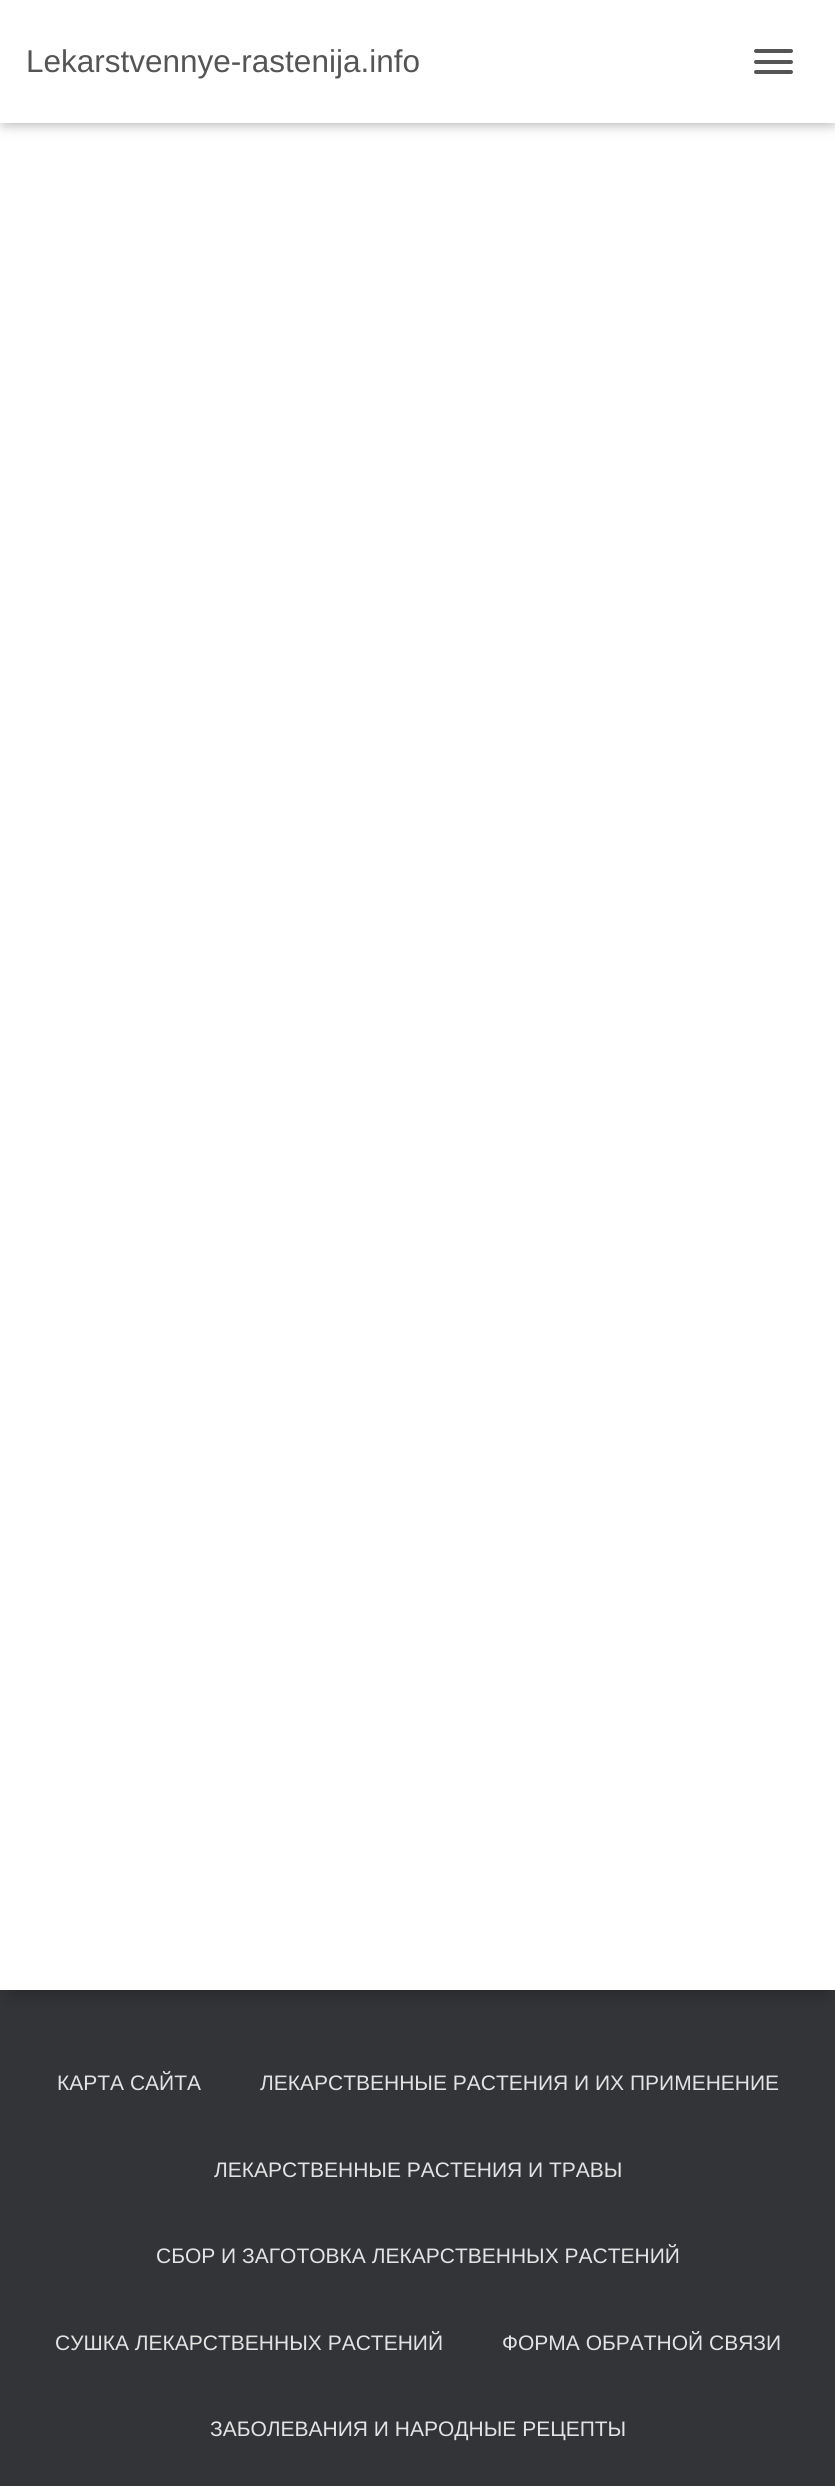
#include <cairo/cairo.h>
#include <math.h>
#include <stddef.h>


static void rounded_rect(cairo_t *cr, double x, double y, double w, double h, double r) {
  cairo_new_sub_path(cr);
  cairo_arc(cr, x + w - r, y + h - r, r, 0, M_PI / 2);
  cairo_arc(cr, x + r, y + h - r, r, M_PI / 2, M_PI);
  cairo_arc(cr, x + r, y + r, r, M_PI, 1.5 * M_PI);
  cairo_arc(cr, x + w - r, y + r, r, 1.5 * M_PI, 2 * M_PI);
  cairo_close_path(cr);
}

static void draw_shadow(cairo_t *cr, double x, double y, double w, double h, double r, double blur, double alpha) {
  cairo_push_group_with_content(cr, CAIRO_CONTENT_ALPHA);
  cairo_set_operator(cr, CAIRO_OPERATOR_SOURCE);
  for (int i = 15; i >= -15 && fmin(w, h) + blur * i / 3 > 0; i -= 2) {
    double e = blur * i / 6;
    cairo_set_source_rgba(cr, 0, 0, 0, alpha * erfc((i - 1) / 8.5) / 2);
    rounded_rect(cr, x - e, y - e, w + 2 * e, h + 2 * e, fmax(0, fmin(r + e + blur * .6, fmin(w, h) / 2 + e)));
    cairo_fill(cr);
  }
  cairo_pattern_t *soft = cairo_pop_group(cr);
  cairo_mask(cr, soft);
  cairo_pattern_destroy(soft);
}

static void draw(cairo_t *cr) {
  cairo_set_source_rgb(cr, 50 / 255.0, 52 / 255.0, 55 / 255.0);
  cairo_paint(cr);
  cairo_set_source_rgb(cr, 0, 0, 0);
  draw_shadow(cr, 9, -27, 819, 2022, 0, 9, 0.2);
  cairo_set_source_rgb(cr, 1, 1, 1);
  cairo_rectangle(cr, 0, 123, 835, 1867);
  cairo_fill(cr);
  cairo_set_source_rgb(cr, 0, 0, 0);
  draw_shadow(cr, 4, 11, 829, 115, 0, 4.5, 0.1);
  draw_shadow(cr, 0, 2, 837, 122, 0, 9, 0.12);
  draw_shadow(cr, 11, 12, 815, 102, 0, 9, 0.42);
  cairo_set_source_rgb(cr, 1, 1, 1);
  cairo_rectangle(cr, 0, 0, 835, 123);
  cairo_fill(cr);
  cairo_set_source_rgb(cr, 85 / 255.0, 85 / 255.0, 85 / 255.0);
  rounded_rect(cr, 754, 49, 39, 4, 2);
  cairo_fill(cr);
  rounded_rect(cr, 754, 60, 39, 4, 2);
  cairo_fill(cr);
  rounded_rect(cr, 754, 70, 39, 4, 2);
  cairo_fill(cr);
  cairo_select_font_face(cr, "Liberation Sans", CAIRO_FONT_SLANT_NORMAL, CAIRO_FONT_WEIGHT_NORMAL);
  cairo_set_font_size(cr, 31.5);
  cairo_move_to(cr, 26, 72);
  cairo_show_text(cr, "Lekarstvennye-rastenija.info");
  cairo_set_font_size(cr, 21);
  cairo_set_source_rgb(cr, 226 / 255.0, 227 / 255.0, 227 / 255.0);
  cairo_move_to(cr, 57, 2090);
  cairo_show_text(cr, "КАРТА САЙТА");
  cairo_move_to(cr, 260, 2090);
  cairo_show_text(cr, "ЛЕКАРСТВЕННЫЕ РАСТЕНИЯ И ИХ ПРИМЕНЕНИЕ");
  cairo_move_to(cr, 214, 2177);
  cairo_show_text(cr, "ЛЕКАРСТВЕННЫЕ РАСТЕНИЯ И ТРАВЫ");
  cairo_move_to(cr, 156, 2263);
  cairo_show_text(cr, "СБОР И ЗАГОТОВКА ЛЕКАРСТВЕННЫХ РАСТЕНИЙ");
  cairo_move_to(cr, 55, 2350);
  cairo_show_text(cr, "СУШКА ЛЕКАРСТВЕННЫХ РАСТЕНИЙ");
  cairo_move_to(cr, 502, 2350);
  cairo_show_text(cr, "ФОРМА ОБРАТНОЙ СВЯЗИ");
  cairo_move_to(cr, 210, 2436);
  cairo_show_text(cr, "ЗАБОЛЕВАНИЯ И НАРОДНЫЕ РЕЦЕПТЫ");
}

int main(void) {
  cairo_surface_t *surface = cairo_image_surface_create(CAIRO_FORMAT_RGB24, 835, 2486);
  cairo_t *cr = cairo_create(surface);
  cairo_font_options_t *options = cairo_font_options_create();
  cairo_font_options_set_hint_metrics(options, CAIRO_HINT_METRICS_OFF);
  cairo_font_options_set_hint_style(options, CAIRO_HINT_STYLE_NONE);
  cairo_set_font_options(cr, options);
  cairo_set_miter_limit(cr, 4);
  draw(cr);
  cairo_surface_write_to_png(surface, "out.png");
  cairo_font_options_destroy(options);
  cairo_destroy(cr);
  cairo_surface_destroy(surface);
  return 0;
}
